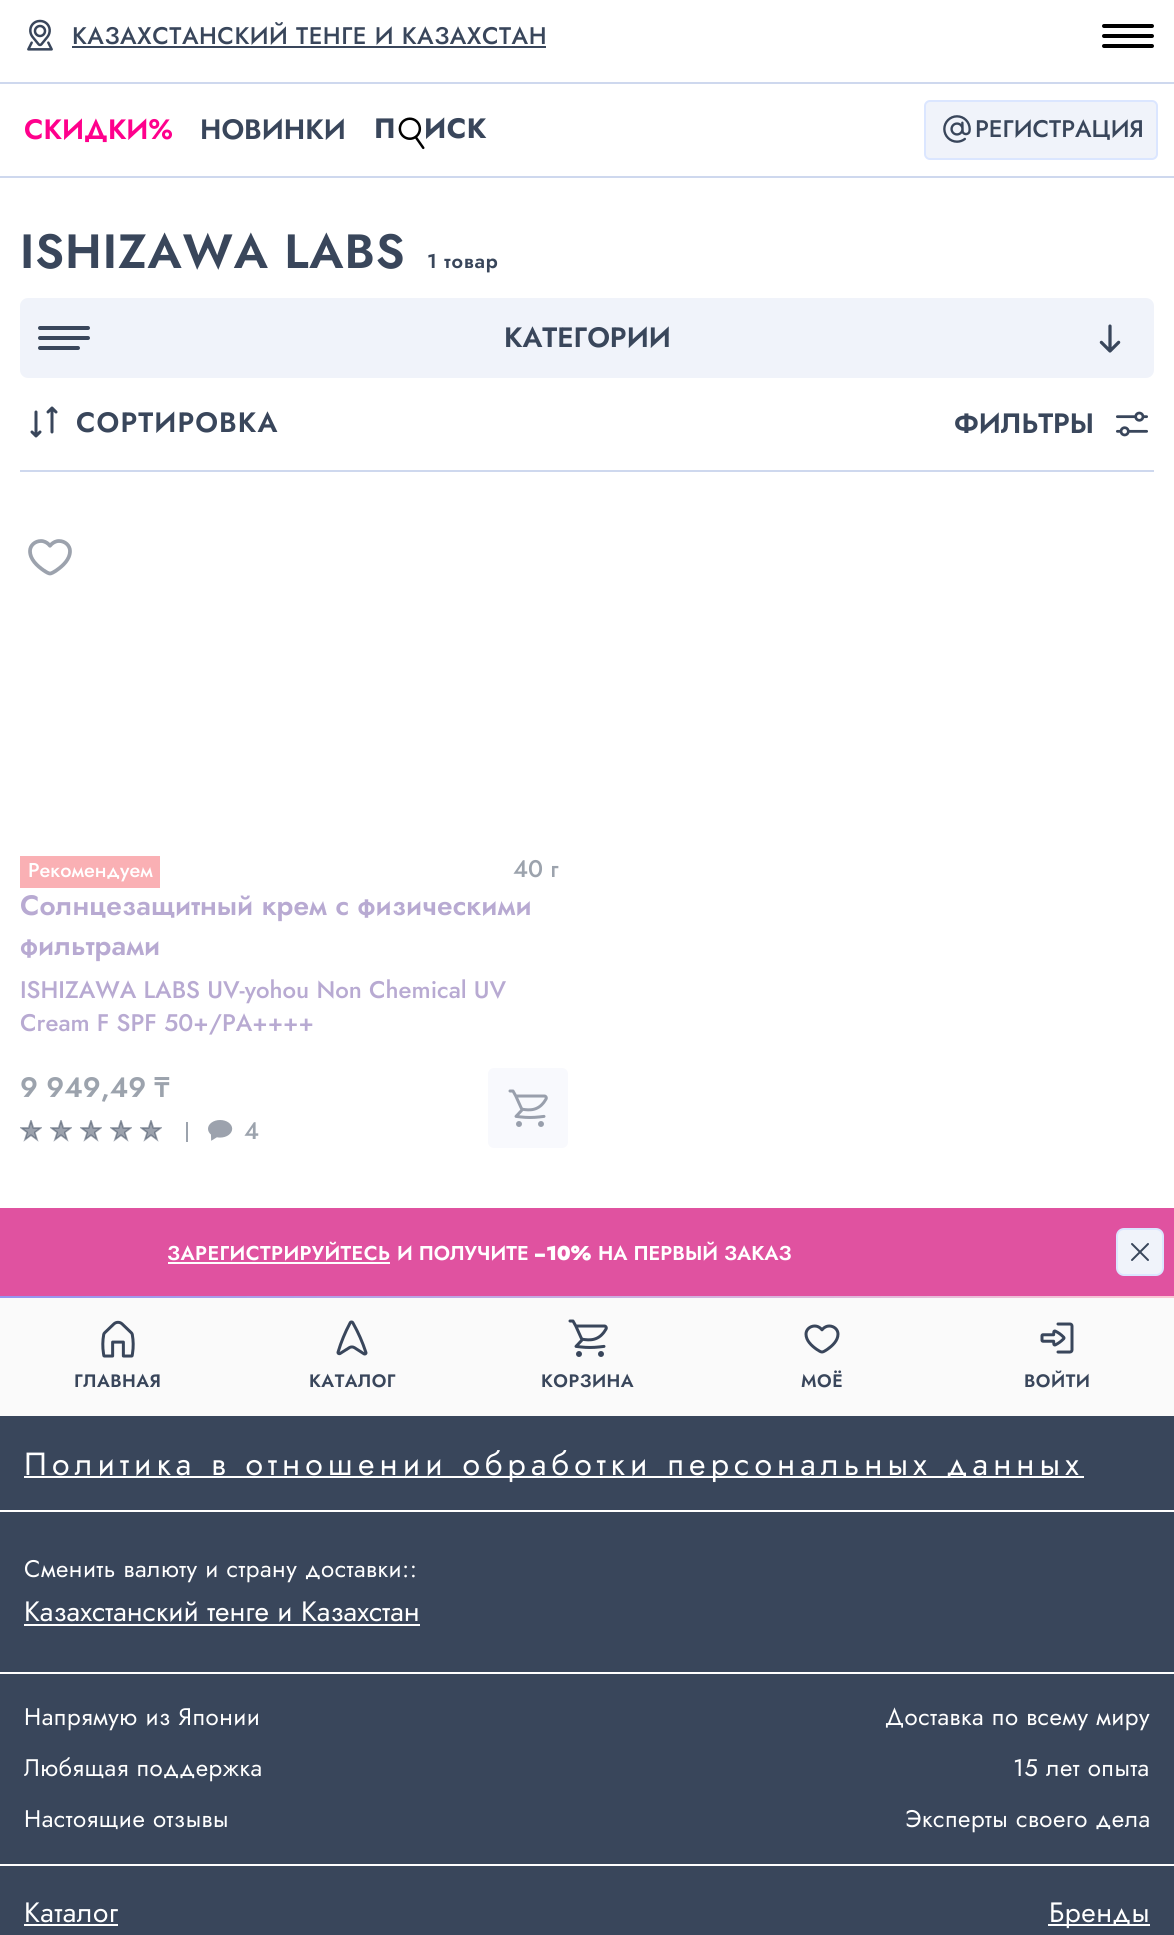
#include <cairo/cairo.h>
#include <math.h>
#include <stddef.h>


static void draw_spaced(cairo_t *cr, double x, double y, const char *s, double letter, double word) {
  cairo_move_to(cr, x, y);
  while (*s) {
    char ch[5] = {0};
    int n = 0;
    do ch[n++] = *s++; while ((*s & 0xC0) == 0x80);
    cairo_show_text(cr, ch);
    cairo_rel_move_to(cr, letter + word * (*ch == ' '), 0);
  }
}

static void rounded_rect(cairo_t *cr, double x, double y, double w, double h, double r) {
  cairo_new_sub_path(cr);
  cairo_arc(cr, x + w - r, y + h - r, r, 0, M_PI / 2);
  cairo_arc(cr, x + r, y + h - r, r, M_PI / 2, M_PI);
  cairo_arc(cr, x + r, y + r, r, M_PI, 1.5 * M_PI);
  cairo_arc(cr, x + w - r, y + r, r, 1.5 * M_PI, 2 * M_PI);
  cairo_close_path(cr);
}

static void draw_shadow(cairo_t *cr, double x, double y, double w, double h, double r, double blur, double alpha) {
  cairo_push_group_with_content(cr, CAIRO_CONTENT_ALPHA);
  cairo_set_operator(cr, CAIRO_OPERATOR_SOURCE);
  for (int i = 15; i >= -15 && fmin(w, h) + blur * i / 3 > 0; i -= 2) {
    double e = blur * i / 6;
    cairo_set_source_rgba(cr, 0, 0, 0, alpha * erfc((i - 1) / 8.5) / 2);
    rounded_rect(cr, x - e, y - e, w + 2 * e, h + 2 * e, fmax(0, fmin(r + e + blur * .6, fmin(w, h) / 2 + e)));
    cairo_fill(cr);
  }
  cairo_pattern_t *soft = cairo_pop_group(cr);
  cairo_mask(cr, soft);
  cairo_pattern_destroy(soft);
}

static void draw_image(cairo_t *cr, const char *path, double x, double y, double w, double h) {
  cairo_surface_t *image = cairo_image_surface_create_from_png(path);
  cairo_save(cr);
  cairo_set_source_surface(cr, image, x, y);
  cairo_rectangle(cr, x, y, w, h);
  cairo_fill(cr);
  cairo_restore(cr);
  cairo_surface_destroy(image);
}

static void draw(cairo_t *cr) {
  cairo_pattern_t *gradient;
  cairo_set_source_rgb(cr, 1, 1, 1);
  cairo_paint(cr);
  draw_image(cr, "images/1.png", 27, 19, 26, 32);
  cairo_set_source_rgb(cr, 57 / 255.0, 70 / 255.0, 91 / 255.0);
  cairo_rectangle(cr, 72, 46, 474, 2);
  cairo_fill(cr);
  cairo_set_source_rgb(cr, 0, 0, 0);
  rounded_rect(cr, 1102, 24, 52, 4, 2);
  cairo_fill(cr);
  rounded_rect(cr, 1102, 34, 52, 4, 2);
  cairo_fill(cr);
  rounded_rect(cr, 1102, 44, 52, 4, 2);
  cairo_fill(cr);
  cairo_set_source_rgb(cr, 206 / 255.0, 216 / 255.0, 238 / 255.0);
  cairo_rectangle(cr, 0, 82, 1174, 2);
  cairo_fill(cr);
  cairo_rectangle(cr, 0, 176, 1174, 2);
  cairo_fill(cr);
  draw_image(cr, "images/2.png", 398, 117, 27, 33);
  cairo_set_source_rgb(cr, 240 / 255.0, 243 / 255.0, 250 / 255.0);
  rounded_rect(cr, 925, 101, 232, 58, 5);
  cairo_fill_preserve(cr);
  cairo_set_source_rgb(cr, 219 / 255.0, 230 / 255.0, 1);
  cairo_stroke(cr);
  draw_image(cr, "images/3.png", 943, 115, 28, 28);
  cairo_set_source_rgb(cr, 240 / 255.0, 243 / 255.0, 250 / 255.0);
  rounded_rect(cr, 20, 298, 1134, 80, 8);
  cairo_fill(cr);
  draw_image(cr, "images/4.png", 38, 326, 52, 24);
  draw_image(cr, "images/5.png", 1099, 324, 22, 29);
  draw_image(cr, "images/6.png", 30, 406, 28, 32);
  draw_image(cr, "images/7.png", 1116, 411, 32, 26);
  cairo_set_source_rgb(cr, 206 / 255.0, 216 / 255.0, 238 / 255.0);
  cairo_rectangle(cr, 20, 470, 1134, 2);
  cairo_fill(cr);
  draw_image(cr, "images/8.png", 28, 539, 44, 37);
  cairo_set_source_rgb(cr, 250 / 255.0, 176 / 255.0, 180 / 255.0);
  cairo_rectangle(cr, 20, 856, 140, 32);
  cairo_fill(cr);
  cairo_set_source_rgb(cr, 248 / 255.0, 249 / 255.0, 253 / 255.0);
  rounded_rect(cr, 488, 1068, 80, 80, 6);
  cairo_fill(cr);
  draw_image(cr, "images/9.png", 508, 1089, 40, 38);
  draw_image(cr, "images/10.png", 20, 1120, 22, 22);
  draw_image(cr, "images/10.png", 50, 1120, 22, 22);
  draw_image(cr, "images/10.png", 80, 1120, 22, 22);
  draw_image(cr, "images/10.png", 110, 1120, 22, 22);
  draw_image(cr, "images/10.png", 140, 1120, 22, 22);
  cairo_set_source_rgb(cr, 156 / 255.0, 163 / 255.0, 173 / 255.0);
  cairo_rectangle(cr, 186, 1122, 2, 20);
  cairo_fill(cr);
  draw_image(cr, "images/11.png", 208, 1120, 25, 21);
  cairo_set_source_rgb(cr, 57 / 255.0, 70 / 255.0, 91 / 255.0);
  cairo_rectangle(cr, 0, 1416, 1174, 94);
  cairo_fill(cr);
  cairo_set_source_rgb(cr, 57 / 255.0, 70 / 255.0, 91 / 255.0);
  draw_shadow(cr, 0, 1290, 1174, 120, 0, 13, 0.15);
  cairo_set_source_rgb(cr, 224 / 255.0, 82 / 255.0, 160 / 255.0);
  cairo_rectangle(cr, 0, 1208, 1174, 88);
  cairo_fill(cr);
  cairo_set_source_rgb(cr, 1, 1, 1);
  cairo_rectangle(cr, 168, 1262, 222, 2);
  cairo_fill(cr);
  cairo_set_source_rgb(cr, 240 / 255.0, 243 / 255.0, 250 / 255.0);
  rounded_rect(cr, 1117, 1229, 46, 46, 7);
  cairo_fill_preserve(cr);
  cairo_set_source_rgb(cr, 219 / 255.0, 230 / 255.0, 1);
  cairo_stroke(cr);
  draw_image(cr, "images/12.png", 1131, 1243, 18, 18);
  cairo_set_source_rgb(cr, 250 / 255.0, 250 / 255.0, 250 / 255.0);
  cairo_rectangle(cr, 0, 1298, 1174, 118);
  cairo_fill(cr);
  gradient = cairo_pattern_create_linear(0, 1297, 1174, 1297);
  cairo_pattern_add_color_stop_rgba(gradient, 0, 149 / 255.0, 148 / 255.0, 240 / 255.0, 1);
  cairo_pattern_add_color_stop_rgba(gradient, 1, 251 / 255.0, 198 / 255.0, 211 / 255.0, 1);
  cairo_set_source(cr, gradient);
  cairo_pattern_destroy(gradient);
  cairo_rectangle(cr, 0, 1296, 1174, 2);
  cairo_fill(cr);
  draw_image(cr, "images/13.png", 101, 1320, 34, 38);
  draw_image(cr, "images/14.png", 336, 1320, 32, 36);
  draw_image(cr, "images/15.png", 568, 1319, 40, 38);
  draw_image(cr, "images/16.png", 804, 1324, 36, 30);
  draw_image(cr, "images/17.png", 1040, 1322, 34, 32);
  cairo_set_source_rgb(cr, 1, 1, 1);
  cairo_rectangle(cr, 24, 1476, 1060, 2);
  cairo_fill(cr);
  cairo_set_source_rgb(cr, 57 / 255.0, 70 / 255.0, 91 / 255.0);
  cairo_rectangle(cr, 0, 1512, 1174, 160);
  cairo_fill(cr);
  cairo_set_source_rgb(cr, 1, 1, 1);
  cairo_rectangle(cr, 24, 1624, 396, 2);
  cairo_fill(cr);
  cairo_set_source_rgb(cr, 57 / 255.0, 70 / 255.0, 91 / 255.0);
  cairo_rectangle(cr, 0, 1674, 1174, 190);
  cairo_fill(cr);
  cairo_rectangle(cr, 0, 1866, 1174, 69);
  cairo_fill(cr);
  cairo_set_source_rgb(cr, 1, 1, 1);
  cairo_rectangle(cr, 24, 1924, 94, 2);
  cairo_fill(cr);
  cairo_rectangle(cr, 1048, 1924, 102, 2);
  cairo_fill(cr);
  cairo_select_font_face(cr, "Jost Medium", CAIRO_FONT_SLANT_NORMAL, CAIRO_FONT_WEIGHT_NORMAL);
  cairo_set_font_size(cr, 24);
  cairo_set_source_rgb(cr, 57 / 255.0, 70 / 255.0, 91 / 255.0);
  draw_spaced(cr, 72, 44, "КАЗАХСТАНСКИЙ ТЕНГЕ И КАЗАХСТАН", 0.5, 0);
  cairo_select_font_face(cr, "Jost SemiBold", CAIRO_FONT_SLANT_NORMAL, CAIRO_FONT_WEIGHT_NORMAL);
  cairo_set_font_size(cr, 28);
  cairo_set_source_rgb(cr, 1, 0, 140 / 255.0);
  cairo_move_to(cr, 24, 139);
  cairo_show_text(cr, "СКИДКИ%");
  cairo_set_source_rgb(cr, 57 / 255.0, 70 / 255.0, 91 / 255.0);
  cairo_move_to(cr, 200, 139);
  cairo_show_text(cr, "НОВИНКИ");
  cairo_select_font_face(cr, "Jost", CAIRO_FONT_SLANT_NORMAL, CAIRO_FONT_WEIGHT_BOLD);
  draw_spaced(cr, 374, 138, "П", 0.5, 0);
  draw_spaced(cr, 424, 138, "ИСК", 0.5, 0);
  cairo_select_font_face(cr, "Jost Medium", CAIRO_FONT_SLANT_NORMAL, CAIRO_FONT_WEIGHT_NORMAL);
  cairo_set_font_size(cr, 24);
  cairo_move_to(cr, 975, 137);
  cairo_show_text(cr, "РЕГИСТРАЦИЯ");
  cairo_select_font_face(cr, "Jost SemiBold", CAIRO_FONT_SLANT_NORMAL, CAIRO_FONT_WEIGHT_NORMAL);
  cairo_set_font_size(cr, 48);
  draw_spaced(cr, 20, 268, "ISHIZAWA LABS", 1, 0);
  cairo_set_font_size(cr, 20);
  draw_spaced(cr, 427, 268, "1 товар", 0.75, 0);
  cairo_set_font_size(cr, 28);
  cairo_move_to(cr, 504, 347);
  cairo_show_text(cr, "КАТЕГОРИИ");
  draw_spaced(cr, 76, 432, "СОРТИРОВКА", 1.1, 0);
  cairo_move_to(cr, 954, 433);
  cairo_show_text(cr, "ФИЛЬТРЫ");
  cairo_select_font_face(cr, "Jost Medium", CAIRO_FONT_SLANT_NORMAL, CAIRO_FONT_WEIGHT_NORMAL);
  cairo_set_font_size(cr, 20);
  cairo_set_source_rgb(cr, 1, 1, 1);
  cairo_move_to(cr, 28, 877);
  cairo_show_text(cr, "Рекомендуем");
  cairo_set_font_size(cr, 24);
  cairo_set_source_rgb(cr, 156 / 255.0, 163 / 255.0, 173 / 255.0);
  cairo_move_to(cr, 513, 877);
  cairo_show_text(cr, "40 г");
  cairo_select_font_face(cr, "Jost SemiBold", CAIRO_FONT_SLANT_NORMAL, CAIRO_FONT_WEIGHT_NORMAL);
  cairo_set_font_size(cr, 28);
  cairo_set_source_rgb(cr, 184 / 255.0, 170 / 255.0, 210 / 255.0);
  cairo_move_to(cr, 20, 915);
  cairo_show_text(cr, "Солнцезащитный крем с физическими");
  cairo_move_to(cr, 20, 955);
  cairo_show_text(cr, "фильтрами");
  cairo_select_font_face(cr, "Jost Medium", CAIRO_FONT_SLANT_NORMAL, CAIRO_FONT_WEIGHT_NORMAL);
  cairo_set_font_size(cr, 24);
  cairo_move_to(cr, 20, 998);
  cairo_show_text(cr, "ISHIZAWA LABS UV-yohou Non Chemical UV");
  cairo_move_to(cr, 20, 1031);
  cairo_show_text(cr, "Cream F SPF 50+/PA++++");
  cairo_select_font_face(cr, "Jost SemiBold", CAIRO_FONT_SLANT_NORMAL, CAIRO_FONT_WEIGHT_NORMAL);
  cairo_set_font_size(cr, 28);
  cairo_set_source_rgb(cr, 156 / 255.0, 163 / 255.0, 173 / 255.0);
  cairo_move_to(cr, 20, 1097);
  cairo_show_text(cr, "9 949,49");
  cairo_select_font_face(cr, "Noto Sans SemiBold", CAIRO_FONT_SLANT_NORMAL, CAIRO_FONT_WEIGHT_NORMAL);
  cairo_move_to(cr, 154, 1097);
  cairo_show_text(cr, "₸");
  cairo_select_font_face(cr, "Jost Medium", CAIRO_FONT_SLANT_NORMAL, CAIRO_FONT_WEIGHT_NORMAL);
  cairo_set_font_size(cr, 24);
  cairo_move_to(cr, 244, 1139);
  cairo_show_text(cr, "4");
  cairo_select_font_face(cr, "Jost SemiBold", CAIRO_FONT_SLANT_NORMAL, CAIRO_FONT_WEIGHT_NORMAL);
  cairo_set_font_size(cr, 20);
  cairo_set_source_rgb(cr, 1, 1, 1);
  draw_spaced(cr, 167, 1260, "ЗАРЕГИСТРИРУЙТЕСЬ", 0.4, 0);
  cairo_move_to(cr, 397, 1260);
  cairo_show_text(cr, "И ПОЛУЧИТЕ");
  cairo_select_font_face(cr, "Jost Black", CAIRO_FONT_SLANT_NORMAL, CAIRO_FONT_WEIGHT_NORMAL);
  cairo_move_to(cr, 534, 1260);
  cairo_show_text(cr, "−10%");
  cairo_select_font_face(cr, "Jost SemiBold", CAIRO_FONT_SLANT_NORMAL, CAIRO_FONT_WEIGHT_NORMAL);
  cairo_move_to(cr, 598, 1260);
  cairo_show_text(cr, "НА ПЕРВЫЙ ЗАКАЗ");
  cairo_set_font_size(cr, 18);
  cairo_set_source_rgb(cr, 57 / 255.0, 70 / 255.0, 91 / 255.0);
  draw_spaced(cr, 74, 1387, "ГЛАВНАЯ", 0.5, 0);
  draw_spaced(cr, 309, 1387, "КАТАЛОГ", 0.5, 0);
  draw_spaced(cr, 541, 1387, "КОРЗИНА", 0.5, 0);
  draw_spaced(cr, 801, 1387, "МОЁ", 0.5, 0);
  draw_spaced(cr, 1024, 1387, "ВОЙТИ", 0.5, 0);
  cairo_select_font_face(cr, "Jost", CAIRO_FONT_SLANT_NORMAL, CAIRO_FONT_WEIGHT_NORMAL);
  cairo_set_font_size(cr, 32);
  cairo_set_source_rgb(cr, 1, 1, 1);
  draw_spaced(cr, 24, 1475, "Политика в отношении обработки персональных данных", 5.1, 0);
  cairo_set_font_size(cr, 24);
  draw_spaced(cr, 24, 1577, "Сменить валюту и страну доставки::", 0.5, 0);
  cairo_set_font_size(cr, 28);
  cairo_move_to(cr, 24, 1621);
  cairo_show_text(cr, "Казахстанский тенге и Казахстан");
  cairo_set_font_size(cr, 24);
  draw_spaced(cr, 24, 1725, "Напрямую из Японии", 0.5, 0);
  draw_spaced(cr, 885, 1725, "Доставка по всему миру", 0.5, 0);
  draw_spaced(cr, 24, 1776, "Любящая поддержка", 0.5, 0);
  draw_spaced(cr, 1013, 1776, "15 лет опыта", 0.5, 0);
  draw_spaced(cr, 24, 1827, "Настоящие отзывы", 0.5, 0);
  draw_spaced(cr, 905, 1827, "Эксперты своего дела", 0.5, 0);
  cairo_set_font_size(cr, 28);
  draw_spaced(cr, 24, 1922, "Каталог", 0.5, 0);
  draw_spaced(cr, 1049, 1922, "Бренды", 0.5, 0);
}

int main(void) {
  cairo_surface_t *surface = cairo_image_surface_create(CAIRO_FORMAT_RGB24, 1174, 1935);
  cairo_t *cr = cairo_create(surface);
  cairo_font_options_t *options = cairo_font_options_create();
  cairo_font_options_set_hint_metrics(options, CAIRO_HINT_METRICS_OFF);
  cairo_font_options_set_hint_style(options, CAIRO_HINT_STYLE_NONE);
  cairo_set_font_options(cr, options);
  cairo_set_miter_limit(cr, 4);
  draw(cr);
  cairo_surface_write_to_png(surface, "out.png");
  cairo_font_options_destroy(options);
  cairo_destroy(cr);
  cairo_surface_destroy(surface);
  return 0;
}
